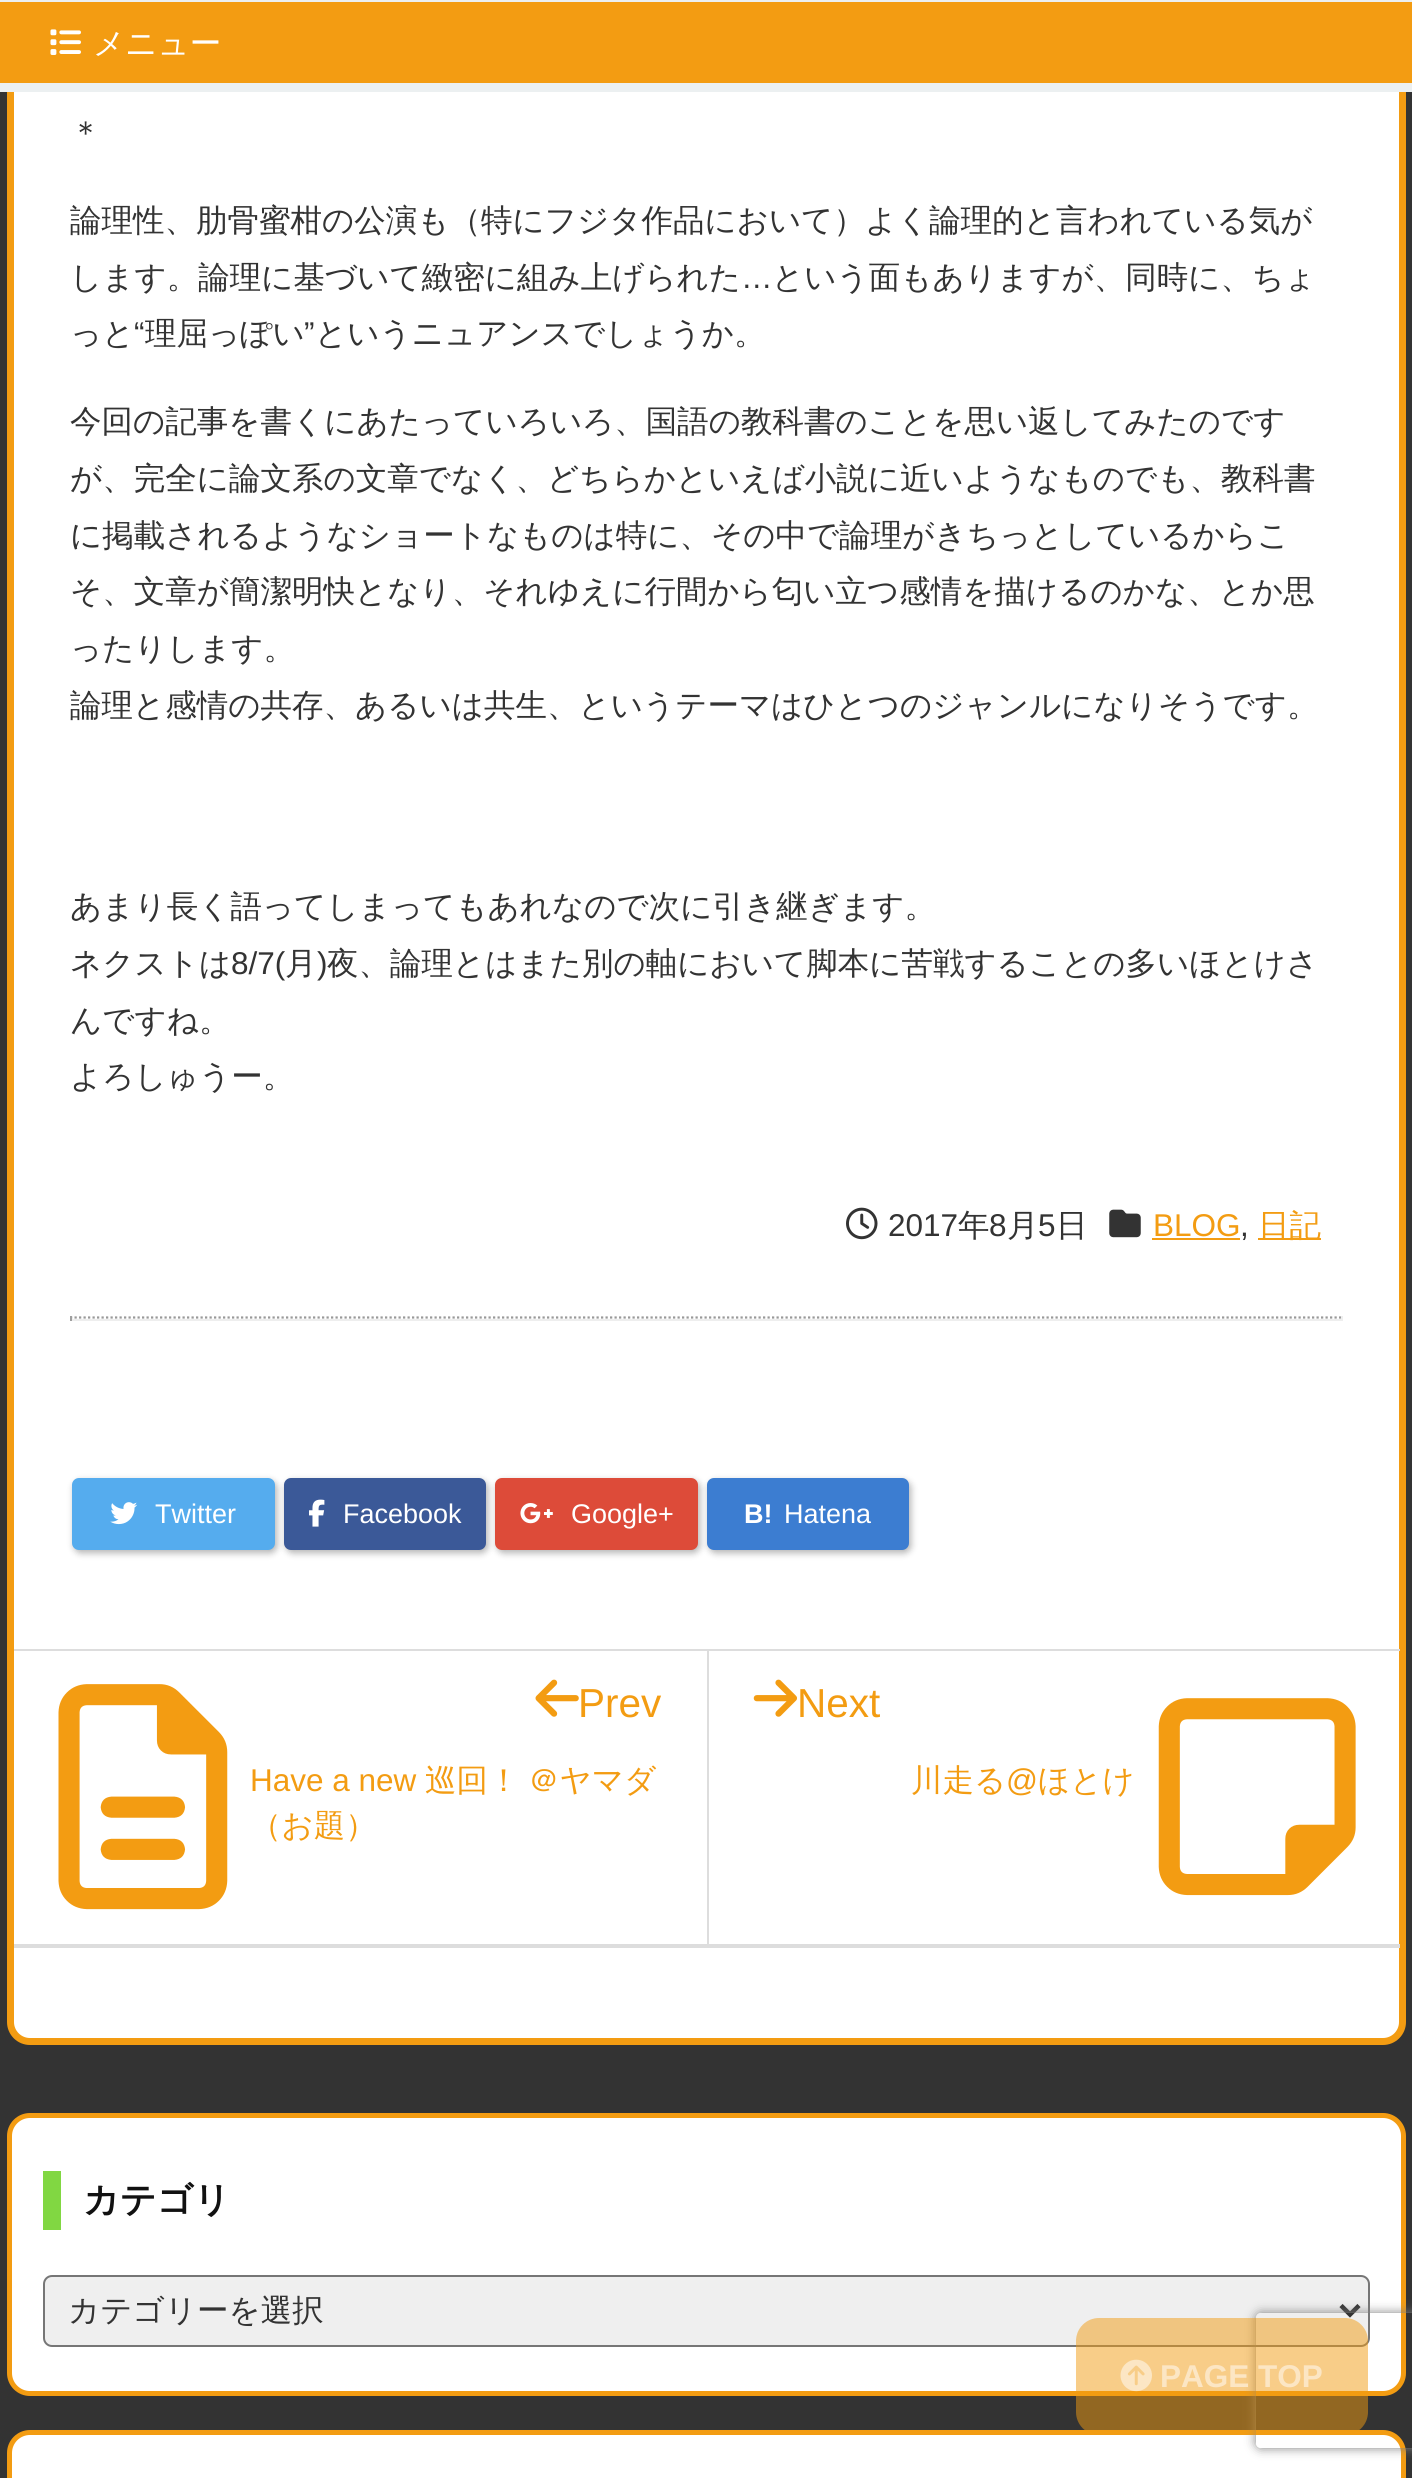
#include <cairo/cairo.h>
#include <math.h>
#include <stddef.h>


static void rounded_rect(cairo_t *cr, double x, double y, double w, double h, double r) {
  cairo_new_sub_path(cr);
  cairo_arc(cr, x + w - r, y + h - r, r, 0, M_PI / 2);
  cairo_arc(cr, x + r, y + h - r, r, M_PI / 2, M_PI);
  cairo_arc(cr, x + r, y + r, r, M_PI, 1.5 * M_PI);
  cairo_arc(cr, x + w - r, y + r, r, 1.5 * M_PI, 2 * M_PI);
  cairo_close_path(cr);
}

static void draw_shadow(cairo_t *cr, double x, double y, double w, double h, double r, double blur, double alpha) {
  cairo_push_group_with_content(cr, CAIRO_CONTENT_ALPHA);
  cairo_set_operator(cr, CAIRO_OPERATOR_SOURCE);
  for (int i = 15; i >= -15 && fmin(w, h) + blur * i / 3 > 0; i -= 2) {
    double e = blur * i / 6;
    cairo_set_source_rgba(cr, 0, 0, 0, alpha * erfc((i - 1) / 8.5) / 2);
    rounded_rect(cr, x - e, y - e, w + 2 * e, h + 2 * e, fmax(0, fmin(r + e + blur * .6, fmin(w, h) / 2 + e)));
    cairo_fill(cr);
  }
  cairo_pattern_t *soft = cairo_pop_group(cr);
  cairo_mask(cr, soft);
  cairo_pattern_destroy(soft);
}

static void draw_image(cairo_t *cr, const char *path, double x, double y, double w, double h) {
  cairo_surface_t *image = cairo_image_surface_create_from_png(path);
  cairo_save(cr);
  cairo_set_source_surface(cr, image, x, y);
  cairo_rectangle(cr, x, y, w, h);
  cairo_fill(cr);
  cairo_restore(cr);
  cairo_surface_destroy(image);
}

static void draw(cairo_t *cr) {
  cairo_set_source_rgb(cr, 51 / 255.0, 51 / 255.0, 51 / 255.0);
  cairo_paint(cr);
  cairo_set_source_rgb(cr, 1, 1, 1);
  rounded_rect(cr, 10.5, -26.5, 1392, 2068, 19.5);
  cairo_fill_preserve(cr);
  cairo_set_source_rgb(cr, 243 / 255.0, 156 / 255.0, 18 / 255.0);
  cairo_set_line_width(cr, 7);
  cairo_stroke(cr);
  cairo_rectangle(cr, 0, 2, 1412, 81);
  cairo_fill(cr);
  cairo_set_source_rgb(cr, 236 / 255.0, 240 / 255.0, 241 / 255.0);
  cairo_rectangle(cr, 0, 0, 1412, 2);
  cairo_fill(cr);
  cairo_rectangle(cr, 0, 83, 1412, 9);
  cairo_fill(cr);
  draw_image(cr, "images/1.png", 50, 29, 31, 26);
  draw_image(cr, "images/2.png", 846, 1207, 32, 33);
  draw_image(cr, "images/3.png", 1109, 1209, 32, 29);
  cairo_set_source_rgb(cr, 243 / 255.0, 156 / 255.0, 18 / 255.0);
  cairo_rectangle(cr, 1152, 1238, 88, 2);
  cairo_fill(cr);
  cairo_rectangle(cr, 1258, 1238, 63, 2);
  cairo_fill(cr);
  cairo_new_path(cr);
  cairo_move_to(cr, 70, 1317.5);
  cairo_line_to(cr, 1343, 1317.5);
  cairo_set_source_rgb(cr, 153 / 255.0, 153 / 255.0, 153 / 255.0);
  cairo_set_line_width(cr, 2.2);
  cairo_set_dash(cr, (double[]){2.25, 2.25}, 2, 0);
  cairo_stroke(cr);
  cairo_set_source_rgb(cr, 238 / 255.0, 238 / 255.0, 238 / 255.0);
  cairo_rectangle(cr, 1341, 1316, 2, 5);
  cairo_fill(cr);
  cairo_rectangle(cr, 70, 1319, 1273, 2);
  cairo_fill(cr);
  cairo_set_source_rgb(cr, 159 / 255.0, 159 / 255.0, 159 / 255.0);
  cairo_rectangle(cr, 70, 1316, 2, 5);
  cairo_fill(cr);
  cairo_set_source_rgb(cr, 0, 0, 0);
  draw_shadow(cr, 74, 1481, 203, 72, 7, 3.5, 0.3);
  cairo_set_source_rgb(cr, 85 / 255.0, 172 / 255.0, 238 / 255.0);
  rounded_rect(cr, 72, 1478, 203, 72, 7);
  cairo_fill(cr);
  draw_image(cr, "images/4.png", 110, 1502, 28, 23);
  cairo_set_source_rgb(cr, 0, 0, 0);
  draw_shadow(cr, 286, 1481, 202, 72, 7, 3.5, 0.3);
  cairo_set_source_rgb(cr, 59 / 255.0, 89 / 255.0, 152 / 255.0);
  rounded_rect(cr, 284, 1478, 202, 72, 7);
  cairo_fill(cr);
  draw_image(cr, "images/5.png", 309, 1499, 16, 28);
  cairo_set_source_rgb(cr, 0, 0, 0);
  draw_shadow(cr, 497, 1481, 203, 72, 7, 3.5, 0.3);
  cairo_set_source_rgb(cr, 221 / 255.0, 75 / 255.0, 57 / 255.0);
  rounded_rect(cr, 495, 1478, 203, 72, 7);
  cairo_fill(cr);
  draw_image(cr, "images/6.png", 520, 1503, 33, 21);
  cairo_set_source_rgb(cr, 0, 0, 0);
  draw_shadow(cr, 709, 1481, 202, 72, 7, 3.5, 0.3);
  cairo_set_source_rgb(cr, 60 / 255.0, 125 / 255.0, 209 / 255.0);
  rounded_rect(cr, 707, 1478, 202, 72, 7);
  cairo_fill(cr);
  cairo_set_source_rgb(cr, 221 / 255.0, 221 / 255.0, 221 / 255.0);
  cairo_rectangle(cr, 14, 1946, 1386, 2);
  cairo_fill(cr);
  draw_image(cr, "images/7.png", 58, 1684, 170, 226);
  draw_image(cr, "images/8.png", 535, 1679, 44, 38);
  cairo_rectangle(cr, 14, 1649, 1386, 2);
  cairo_fill(cr);
  cairo_rectangle(cr, 14, 1944, 1386, 2);
  cairo_fill(cr);
  cairo_rectangle(cr, 707, 1649, 2, 297);
  cairo_fill(cr);
  draw_image(cr, "images/9.png", 753, 1679, 44, 38);
  draw_image(cr, "images/10.png", 1158, 1698, 198, 198);
  cairo_set_source_rgb(cr, 1, 1, 1);
  rounded_rect(cr, 9.5, 2115.5, 1394, 278, 20.5);
  cairo_fill_preserve(cr);
  cairo_set_source_rgb(cr, 243 / 255.0, 156 / 255.0, 18 / 255.0);
  cairo_set_line_width(cr, 5);
  cairo_set_dash(cr, NULL, 0, 0);
  cairo_stroke(cr);
  cairo_set_source_rgb(cr, 129 / 255.0, 215 / 255.0, 66 / 255.0);
  cairo_rectangle(cr, 43, 2171, 18, 59);
  cairo_fill(cr);
  cairo_set_source_rgb(cr, 239 / 255.0, 239 / 255.0, 239 / 255.0);
  rounded_rect(cr, 44, 2276, 1325, 70, 8);
  cairo_fill_preserve(cr);
  cairo_set_source_rgb(cr, 118 / 255.0, 118 / 255.0, 118 / 255.0);
  cairo_set_line_width(cr, 2);
  cairo_stroke(cr);
  cairo_new_path(cr);
  cairo_move_to(cr, 1341, 2305.5);
  cairo_line_to(cr, 1350, 2314.5);
  cairo_line_to(cr, 1359, 2305.5);
  cairo_set_source_rgb(cr, 51 / 255.0, 51 / 255.0, 51 / 255.0);
  cairo_set_line_width(cr, 4.5);
  cairo_stroke(cr);
  cairo_set_source_rgb(cr, 1, 1, 1);
  rounded_rect(cr, 9.5, 2432.5, 1394, 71, 20.5);
  cairo_fill_preserve(cr);
  cairo_set_source_rgb(cr, 243 / 255.0, 156 / 255.0, 18 / 255.0);
  cairo_set_line_width(cr, 5);
  cairo_stroke(cr);
  cairo_save(cr);
  cairo_set_fill_rule(cr, CAIRO_FILL_RULE_EVEN_ODD);
  cairo_new_path(cr);
  cairo_move_to(cr, 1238, 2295);
  cairo_line_to(cr, 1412, 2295);
  cairo_line_to(cr, 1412, 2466);
  cairo_line_to(cr, 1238, 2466);
  cairo_close_path(cr);
  cairo_move_to(cr, 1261, 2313);
  cairo_line_to(cr, 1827, 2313);
  cairo_curve_to(cr, 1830, 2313, 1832, 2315, 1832, 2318);
  cairo_line_to(cr, 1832, 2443);
  cairo_curve_to(cr, 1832, 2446, 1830, 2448, 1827, 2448);
  cairo_line_to(cr, 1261, 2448);
  cairo_curve_to(cr, 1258, 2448, 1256, 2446, 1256, 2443);
  cairo_line_to(cr, 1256, 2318);
  cairo_curve_to(cr, 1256, 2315, 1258, 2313, 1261, 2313);
  cairo_close_path(cr);
  cairo_clip(cr);
  cairo_set_source_rgb(cr, 128 / 255.0, 128 / 255.0, 128 / 255.0);
  draw_shadow(cr, 1256, 2313, 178, 135, 5, 5.5, 1);
  cairo_restore(cr);
  cairo_set_source_rgba(cr, 243 / 255.0, 156 / 255.0, 18 / 255.0, 0.5);
  rounded_rect(cr, 1076, 2318, 292, 117, 23);
  cairo_fill(cr);
  draw_image(cr, "images/11.png", 1120, 2359, 32, 33);
  cairo_select_font_face(cr, "WenQuanYi Zen Hei Medium", CAIRO_FONT_SLANT_NORMAL, CAIRO_FONT_WEIGHT_NORMAL);
  cairo_set_font_size(cr, 31.5);
  cairo_set_source_rgb(cr, 1, 1, 1);
  cairo_move_to(cr, 93, 54);
  cairo_show_text(cr, "メニュー");
  cairo_set_source_rgb(cr, 51 / 255.0, 51 / 255.0, 51 / 255.0);
  cairo_move_to(cr, 70, 143);
  cairo_show_text(cr, "＊");
  cairo_move_to(cr, 70, 231);
  cairo_show_text(cr, "論理性、肋骨蜜柑の公演も（特にフジタ作品において）よく論理的と言われている気が");
  cairo_move_to(cr, 70, 288);
  cairo_show_text(cr, "します。論理に基づいて緻密に組み上げられた");
  cairo_select_font_face(cr, "Liberation Sans", CAIRO_FONT_SLANT_NORMAL, CAIRO_FONT_WEIGHT_NORMAL);
  cairo_move_to(cr, 741, 288);
  cairo_show_text(cr, "…");
  cairo_select_font_face(cr, "WenQuanYi Zen Hei Medium", CAIRO_FONT_SLANT_NORMAL, CAIRO_FONT_WEIGHT_NORMAL);
  cairo_move_to(cr, 772, 288);
  cairo_show_text(cr, "という面もありますが、同時に、ちょ");
  cairo_move_to(cr, 70, 344);
  cairo_show_text(cr, "っと");
  cairo_select_font_face(cr, "Liberation Sans", CAIRO_FONT_SLANT_NORMAL, CAIRO_FONT_WEIGHT_NORMAL);
  cairo_move_to(cr, 134, 344);
  cairo_show_text(cr, "“");
  cairo_select_font_face(cr, "WenQuanYi Zen Hei Medium", CAIRO_FONT_SLANT_NORMAL, CAIRO_FONT_WEIGHT_NORMAL);
  cairo_move_to(cr, 145, 344);
  cairo_show_text(cr, "理屈っぽい");
  cairo_select_font_face(cr, "Liberation Sans", CAIRO_FONT_SLANT_NORMAL, CAIRO_FONT_WEIGHT_NORMAL);
  cairo_move_to(cr, 304, 344);
  cairo_show_text(cr, "”");
  cairo_select_font_face(cr, "WenQuanYi Zen Hei Medium", CAIRO_FONT_SLANT_NORMAL, CAIRO_FONT_WEIGHT_NORMAL);
  cairo_move_to(cr, 315, 344);
  cairo_show_text(cr, "というニュアンスでしょうか。");
  cairo_move_to(cr, 70, 432);
  cairo_show_text(cr, "今回の記事を書くにあたっていろいろ、国語の教科書のことを思い返してみたのです");
  cairo_move_to(cr, 70, 489);
  cairo_show_text(cr, "が、完全に論文系の文章でなく、どちらかといえば小説に近いようなものでも、教科書");
  cairo_move_to(cr, 70, 546);
  cairo_show_text(cr, "に掲載されるようなショートなものは特に、その中で論理がきちっとしているからこ");
  cairo_move_to(cr, 70, 602);
  cairo_show_text(cr, "そ、文章が簡潔明快となり、それゆえに行間から匂い立つ感情を描けるのかな、とか思");
  cairo_move_to(cr, 70, 659);
  cairo_show_text(cr, "ったりします。");
  cairo_move_to(cr, 70, 716);
  cairo_show_text(cr, "論理と感情の共存、あるいは共生、というテーマはひとつのジャンルになりそうです。");
  cairo_move_to(cr, 70, 917);
  cairo_show_text(cr, "あまり長く語ってしまってもあれなので次に引き継ぎます。");
  cairo_move_to(cr, 70, 974);
  cairo_show_text(cr, "ネクストは");
  cairo_select_font_face(cr, "Liberation Sans", CAIRO_FONT_SLANT_NORMAL, CAIRO_FONT_WEIGHT_NORMAL);
  cairo_move_to(cr, 231, 974);
  cairo_show_text(cr, "8/7(");
  cairo_select_font_face(cr, "WenQuanYi Zen Hei Medium", CAIRO_FONT_SLANT_NORMAL, CAIRO_FONT_WEIGHT_NORMAL);
  cairo_move_to(cr, 285, 974);
  cairo_show_text(cr, "月");
  cairo_select_font_face(cr, "Liberation Sans", CAIRO_FONT_SLANT_NORMAL, CAIRO_FONT_WEIGHT_NORMAL);
  cairo_move_to(cr, 317, 974);
  cairo_show_text(cr, ")");
  cairo_select_font_face(cr, "WenQuanYi Zen Hei Medium", CAIRO_FONT_SLANT_NORMAL, CAIRO_FONT_WEIGHT_NORMAL);
  cairo_move_to(cr, 327, 974);
  cairo_show_text(cr, "夜、論理とはまた別の軸において脚本に苦戦することの多いほとけさ");
  cairo_move_to(cr, 70, 1031);
  cairo_show_text(cr, "んですね。");
  cairo_move_to(cr, 70, 1087);
  cairo_show_text(cr, "よろしゅうー。");
  cairo_select_font_face(cr, "Liberation Sans", CAIRO_FONT_SLANT_NORMAL, CAIRO_FONT_WEIGHT_NORMAL);
  cairo_move_to(cr, 888, 1236);
  cairo_show_text(cr, "2017");
  cairo_select_font_face(cr, "WenQuanYi Zen Hei Medium", CAIRO_FONT_SLANT_NORMAL, CAIRO_FONT_WEIGHT_NORMAL);
  cairo_move_to(cr, 958, 1236);
  cairo_show_text(cr, "年");
  cairo_select_font_face(cr, "Liberation Sans", CAIRO_FONT_SLANT_NORMAL, CAIRO_FONT_WEIGHT_NORMAL);
  cairo_move_to(cr, 989, 1236);
  cairo_show_text(cr, "8");
  cairo_select_font_face(cr, "WenQuanYi Zen Hei Medium", CAIRO_FONT_SLANT_NORMAL, CAIRO_FONT_WEIGHT_NORMAL);
  cairo_move_to(cr, 1007, 1236);
  cairo_show_text(cr, "月");
  cairo_select_font_face(cr, "Liberation Sans", CAIRO_FONT_SLANT_NORMAL, CAIRO_FONT_WEIGHT_NORMAL);
  cairo_move_to(cr, 1038, 1236);
  cairo_show_text(cr, "5");
  cairo_select_font_face(cr, "WenQuanYi Zen Hei Medium", CAIRO_FONT_SLANT_NORMAL, CAIRO_FONT_WEIGHT_NORMAL);
  cairo_move_to(cr, 1056, 1236);
  cairo_show_text(cr, "日");
  cairo_select_font_face(cr, "Liberation Sans", CAIRO_FONT_SLANT_NORMAL, CAIRO_FONT_WEIGHT_NORMAL);
  cairo_set_source_rgb(cr, 243 / 255.0, 156 / 255.0, 18 / 255.0);
  cairo_move_to(cr, 1153, 1236);
  cairo_show_text(cr, "BLOG");
  cairo_set_source_rgb(cr, 51 / 255.0, 51 / 255.0, 51 / 255.0);
  cairo_move_to(cr, 1240, 1236);
  cairo_show_text(cr, ",");
  cairo_select_font_face(cr, "WenQuanYi Zen Hei Medium", CAIRO_FONT_SLANT_NORMAL, CAIRO_FONT_WEIGHT_NORMAL);
  cairo_set_source_rgb(cr, 243 / 255.0, 156 / 255.0, 18 / 255.0);
  cairo_move_to(cr, 1258, 1236);
  cairo_show_text(cr, "日記");
  cairo_select_font_face(cr, "Liberation Sans", CAIRO_FONT_SLANT_NORMAL, CAIRO_FONT_WEIGHT_NORMAL);
  cairo_set_font_size(cr, 27);
  cairo_set_source_rgb(cr, 1, 1, 1);
  cairo_move_to(cr, 155, 1523);
  cairo_show_text(cr, "Twitter");
  cairo_move_to(cr, 343, 1523);
  cairo_show_text(cr, "Facebook");
  cairo_move_to(cr, 571, 1523);
  cairo_show_text(cr, "Google+");
  cairo_select_font_face(cr, "Liberation Sans", CAIRO_FONT_SLANT_NORMAL, CAIRO_FONT_WEIGHT_BOLD);
  cairo_move_to(cr, 744, 1523);
  cairo_show_text(cr, "B!");
  cairo_select_font_face(cr, "Liberation Sans", CAIRO_FONT_SLANT_NORMAL, CAIRO_FONT_WEIGHT_NORMAL);
  cairo_move_to(cr, 784, 1523);
  cairo_show_text(cr, "Hatena");
  cairo_set_font_size(cr, 40.5);
  cairo_set_source_rgb(cr, 243 / 255.0, 156 / 255.0, 18 / 255.0);
  cairo_move_to(cr, 578, 1717);
  cairo_show_text(cr, "Prev");
  cairo_set_font_size(cr, 31.5);
  cairo_move_to(cr, 250, 1791);
  cairo_show_text(cr, "Have a new");
  cairo_select_font_face(cr, "WenQuanYi Zen Hei Medium", CAIRO_FONT_SLANT_NORMAL, CAIRO_FONT_WEIGHT_NORMAL);
  cairo_move_to(cr, 425, 1791);
  cairo_show_text(cr, "巡回！");
  cairo_move_to(cr, 528, 1791);
  cairo_show_text(cr, "＠ヤマダ");
  cairo_move_to(cr, 250, 1836);
  cairo_show_text(cr, "（お題）");
  cairo_select_font_face(cr, "Liberation Sans", CAIRO_FONT_SLANT_NORMAL, CAIRO_FONT_WEIGHT_NORMAL);
  cairo_set_font_size(cr, 40.5);
  cairo_move_to(cr, 797, 1717);
  cairo_show_text(cr, "Next");
  cairo_select_font_face(cr, "WenQuanYi Zen Hei Medium", CAIRO_FONT_SLANT_NORMAL, CAIRO_FONT_WEIGHT_NORMAL);
  cairo_set_font_size(cr, 31.5);
  cairo_move_to(cr, 911, 1791);
  cairo_show_text(cr, "川走る");
  cairo_select_font_face(cr, "Liberation Sans", CAIRO_FONT_SLANT_NORMAL, CAIRO_FONT_WEIGHT_NORMAL);
  cairo_move_to(cr, 1006, 1791);
  cairo_show_text(cr, "@");
  cairo_select_font_face(cr, "WenQuanYi Zen Hei Medium", CAIRO_FONT_SLANT_NORMAL, CAIRO_FONT_WEIGHT_NORMAL);
  cairo_move_to(cr, 1038, 1791);
  cairo_show_text(cr, "ほとけ");
  cairo_select_font_face(cr, "WenQuanYi Zen Hei", CAIRO_FONT_SLANT_NORMAL, CAIRO_FONT_WEIGHT_BOLD);
  cairo_set_font_size(cr, 36);
  cairo_set_source_rgb(cr, 17 / 255.0, 17 / 255.0, 17 / 255.0);
  cairo_move_to(cr, 83, 2212);
  cairo_show_text(cr, "カテゴリ");
  cairo_select_font_face(cr, "WenQuanYi Zen Hei Medium", CAIRO_FONT_SLANT_NORMAL, CAIRO_FONT_WEIGHT_NORMAL);
  cairo_set_font_size(cr, 31.5);
  cairo_set_source_rgb(cr, 51 / 255.0, 51 / 255.0, 51 / 255.0);
  cairo_move_to(cr, 68, 2321);
  cairo_show_text(cr, "カテゴリーを選択");
  cairo_select_font_face(cr, "Liberation Sans", CAIRO_FONT_SLANT_NORMAL, CAIRO_FONT_WEIGHT_BOLD);
  cairo_set_source_rgb(cr, 252 / 255.0, 230 / 255.0, 196 / 255.0);
  cairo_move_to(cr, 1160, 2387);
  cairo_show_text(cr, "PAGE TOP");
}

int main(void) {
  cairo_surface_t *surface = cairo_image_surface_create(CAIRO_FORMAT_RGB24, 1412, 2478);
  cairo_t *cr = cairo_create(surface);
  cairo_font_options_t *options = cairo_font_options_create();
  cairo_font_options_set_hint_metrics(options, CAIRO_HINT_METRICS_OFF);
  cairo_font_options_set_hint_style(options, CAIRO_HINT_STYLE_NONE);
  cairo_set_font_options(cr, options);
  cairo_set_miter_limit(cr, 4);
  draw(cr);
  cairo_surface_write_to_png(surface, "out.png");
  cairo_font_options_destroy(options);
  cairo_destroy(cr);
  cairo_surface_destroy(surface);
  return 0;
}
